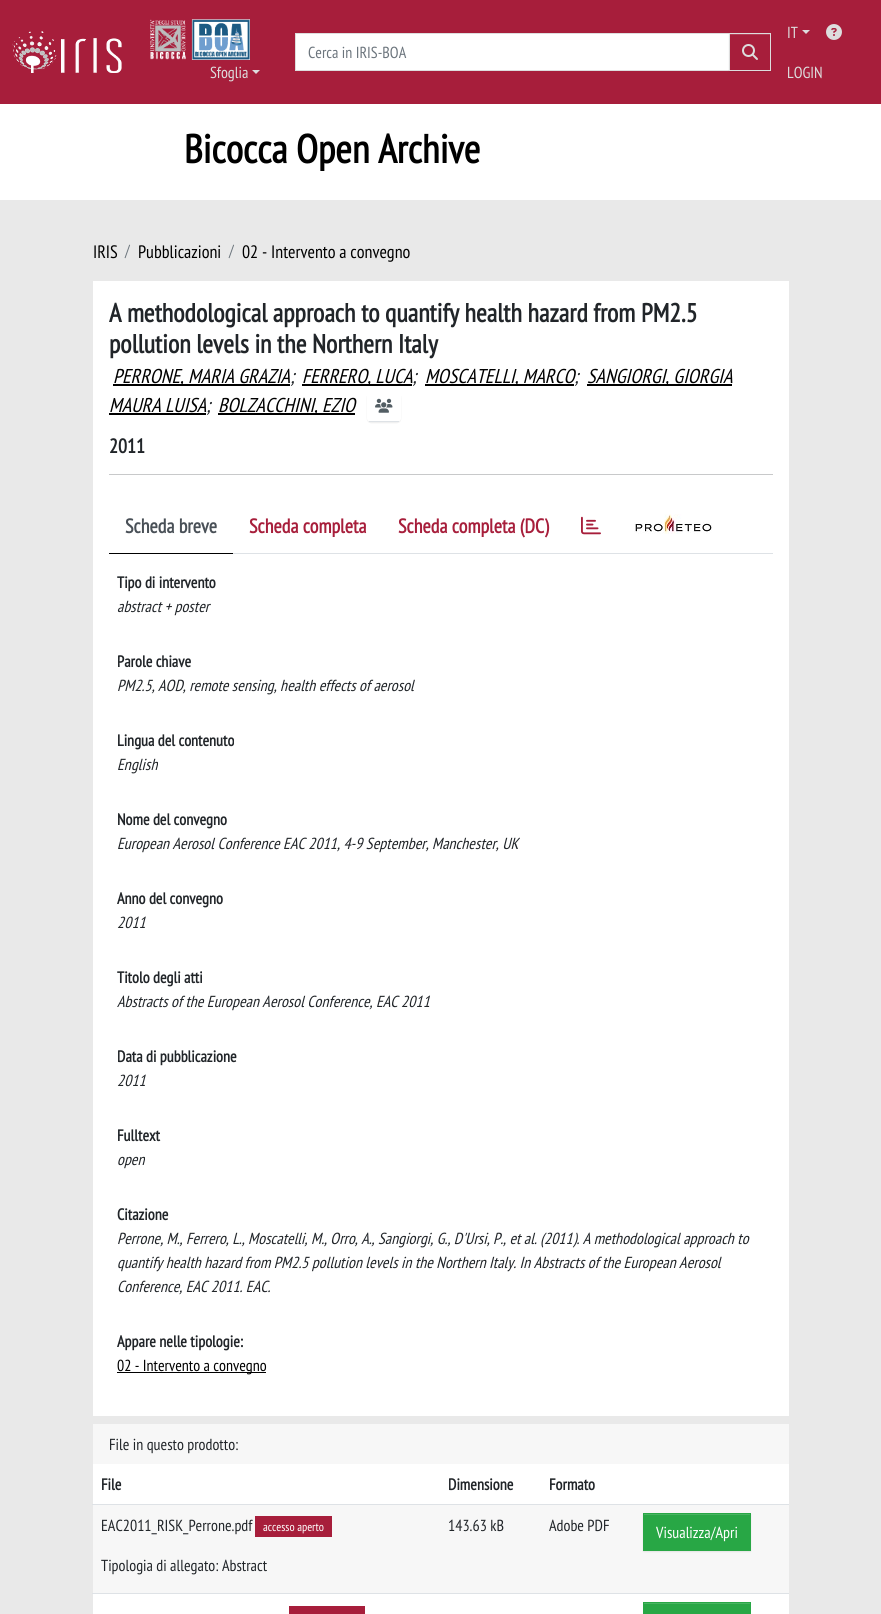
#include <cairo/cairo.h>
#include <math.h>
#include <stddef.h>


static void rounded_rect(cairo_t *cr, double x, double y, double w, double h, double r) {
  cairo_new_sub_path(cr);
  cairo_arc(cr, x + w - r, y + h - r, r, 0, M_PI / 2);
  cairo_arc(cr, x + r, y + h - r, r, M_PI / 2, M_PI);
  cairo_arc(cr, x + r, y + r, r, M_PI, 1.5 * M_PI);
  cairo_arc(cr, x + w - r, y + r, r, 1.5 * M_PI, 2 * M_PI);
  cairo_close_path(cr);
}

static void draw_shadow(cairo_t *cr, double x, double y, double w, double h, double r, double blur, double alpha) {
  cairo_push_group_with_content(cr, CAIRO_CONTENT_ALPHA);
  cairo_set_operator(cr, CAIRO_OPERATOR_SOURCE);
  for (int i = 15; i >= -15 && fmin(w, h) + blur * i / 3 > 0; i -= 2) {
    double e = blur * i / 6;
    cairo_set_source_rgba(cr, 0, 0, 0, alpha * erfc((i - 1) / 8.5) / 2);
    rounded_rect(cr, x - e, y - e, w + 2 * e, h + 2 * e, fmax(0, fmin(r + e + blur * .6, fmin(w, h) / 2 + e)));
    cairo_fill(cr);
  }
  cairo_pattern_t *soft = cairo_pop_group(cr);
  cairo_mask(cr, soft);
  cairo_pattern_destroy(soft);
}

static void draw_image(cairo_t *cr, const char *path, double x, double y, double w, double h) {
  cairo_surface_t *image = cairo_image_surface_create_from_png(path);
  cairo_save(cr);
  cairo_set_source_surface(cr, image, x, y);
  cairo_rectangle(cr, x, y, w, h);
  cairo_fill(cr);
  cairo_restore(cr);
  cairo_surface_destroy(image);
}

static void draw(cairo_t *cr) {
  cairo_set_source_rgb(cr, 233 / 255.0, 233 / 255.0, 233 / 255.0);
  cairo_paint(cr);
  cairo_set_source_rgb(cr, 167 / 255.0, 30 / 255.0, 59 / 255.0);
  cairo_rectangle(cr, 0, 0, 881, 104);
  cairo_fill(cr);
  draw_image(cr, "images/1.png", 12, 31, 110, 42);
  draw_image(cr, "images/2.png", 150, 19, 100, 41);
  cairo_set_source_rgb(cr, 1, 1, 1);
  cairo_rectangle(cr, 295.5, 33.5, 434, 37);
  cairo_fill_preserve(cr);
  cairo_set_source_rgb(cr, 221 / 255.0, 221 / 255.0, 221 / 255.0);
  cairo_set_line_width(cr, 1);
  cairo_stroke(cr);
  cairo_set_source_rgb(cr, 0, 0, 0);
  draw_shadow(cr, 729, 34, 42, 38, 0, 0.5, 0.07);
  cairo_set_source_rgb(cr, 167 / 255.0, 30 / 255.0, 59 / 255.0);
  cairo_rectangle(cr, 730, 35, 40, 35);
  cairo_fill(cr);
  cairo_set_source_rgb(cr, 180 / 255.0, 64 / 255.0, 88 / 255.0);
  cairo_rectangle(cr, 730, 34, 40, 1);
  cairo_fill(cr);
  cairo_rectangle(cr, 729.5, 33.5, 41, 37);
  cairo_set_source_rgb(cr, 221 / 255.0, 221 / 255.0, 221 / 255.0);
  cairo_stroke(cr);
  draw_image(cr, "images/3.png", 742, 44, 16, 16);
  cairo_new_path(cr);
  cairo_move_to(cr, 802, 30);
  cairo_line_to(cr, 810, 30);
  cairo_line_to(cr, 806, 34);
  cairo_close_path(cr);
  cairo_fill(cr);
  draw_image(cr, "images/4.png", 826, 24, 16, 16);
  cairo_new_path(cr);
  cairo_move_to(cr, 252, 70);
  cairo_line_to(cr, 260, 70);
  cairo_line_to(cr, 256, 74);
  cairo_close_path(cr);
  cairo_fill(cr);
  cairo_set_source_rgb(cr, 1, 1, 1);
  cairo_rectangle(cr, 0, 104, 881, 96);
  cairo_fill(cr);
  cairo_rectangle(cr, 93, 281, 696, 1135);
  cairo_fill(cr);
  cairo_set_source_rgb(cr, 0, 0, 0);
  cairo_rectangle(cr, 113, 384, 177, 2);
  cairo_fill(cr);
  cairo_rectangle(cr, 302, 384, 110, 2);
  cairo_fill(cr);
  cairo_rectangle(cr, 425, 384, 149, 2);
  cairo_fill(cr);
  cairo_rectangle(cr, 587, 384, 145, 2);
  cairo_fill(cr);
  cairo_rectangle(cr, 109, 413, 97, 2);
  cairo_fill(cr);
  cairo_rectangle(cr, 218, 413, 137, 2);
  cairo_fill(cr);
  cairo_save(cr);
  cairo_set_fill_rule(cr, CAIRO_FILL_RULE_EVEN_ODD);
  cairo_new_path(cr);
  cairo_move_to(cr, 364, 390);
  cairo_line_to(cr, 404, 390);
  cairo_line_to(cr, 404, 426);
  cairo_line_to(cr, 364, 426);
  cairo_close_path(cr);
  cairo_move_to(cr, 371, 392);
  cairo_line_to(cr, 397, 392);
  cairo_curve_to(cr, 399, 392, 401, 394, 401, 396);
  cairo_line_to(cr, 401, 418);
  cairo_curve_to(cr, 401, 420, 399, 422, 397, 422);
  cairo_line_to(cr, 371, 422);
  cairo_curve_to(cr, 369, 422, 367, 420, 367, 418);
  cairo_line_to(cr, 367, 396);
  cairo_curve_to(cr, 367, 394, 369, 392, 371, 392);
  cairo_close_path(cr);
  cairo_clip(cr);
  cairo_set_source_rgb(cr, 0, 0, 0);
  draw_shadow(cr, 367, 393, 34, 30, 4, 0.5, 0.07);
  cairo_restore(cr);
  cairo_set_source_rgb(cr, 222 / 255.0, 226 / 255.0, 230 / 255.0);
  cairo_rectangle(cr, 369, 421, 30, 1);
  cairo_fill(cr);
  draw_image(cr, "images/5.png", 375, 398, 18, 15);
  cairo_set_source_rgb(cr, 200 / 255.0, 201 / 255.0, 202 / 255.0);
  cairo_rectangle(cr, 109, 474, 664, 1);
  cairo_fill(cr);
  cairo_set_source_rgb(cr, 222 / 255.0, 226 / 255.0, 230 / 255.0);
  cairo_rectangle(cr, 233, 553, 540, 1);
  cairo_fill(cr);
  cairo_set_source_rgb(cr, 0, 0, 0);
  cairo_rectangle(cr, 109, 553, 124, 1);
  cairo_fill(cr);
  draw_image(cr, "images/6.png", 581, 516, 20, 19);
  draw_image(cr, "images/7.png", 634, 514, 78, 20);
  cairo_rectangle(cr, 117, 1372, 149, 1);
  cairo_fill(cr);
  cairo_set_source_rgb(cr, 1, 1, 1);
  cairo_rectangle(cr, 93, 1464, 696, 150);
  cairo_fill(cr);
  cairo_set_source_rgb(cr, 247 / 255.0, 247 / 255.0, 247 / 255.0);
  cairo_rectangle(cr, 93, 1424, 696, 40);
  cairo_fill(cr);
  cairo_set_source_rgb(cr, 222 / 255.0, 226 / 255.0, 230 / 255.0);
  cairo_rectangle(cr, 92, 1504, 697, 1);
  cairo_fill(cr);
  cairo_set_source_rgb(cr, 247 / 255.0, 247 / 255.0, 247 / 255.0);
  cairo_rectangle(cr, 93, 1505, 696, 88);
  cairo_fill(cr);
  cairo_set_source_rgb(cr, 167 / 255.0, 30 / 255.0, 59 / 255.0);
  cairo_rectangle(cr, 255, 1516, 77, 21);
  cairo_fill(cr);
  cairo_set_source_rgb(cr, 222 / 255.0, 226 / 255.0, 230 / 255.0);
  cairo_rectangle(cr, 92, 1593, 697, 1);
  cairo_fill(cr);
  cairo_set_source_rgb(cr, 0, 0, 0);
  draw_shadow(cr, 643, 1514, 108, 38, 0, 0.5, 0.07);
  cairo_set_source_rgb(cr, 40 / 255.0, 167 / 255.0, 69 / 255.0);
  cairo_rectangle(cr, 643, 1513, 108, 38);
  cairo_fill(cr);
  cairo_set_source_rgb(cr, 72 / 255.0, 180 / 255.0, 97 / 255.0);
  cairo_rectangle(cr, 644, 1514, 106, 1);
  cairo_fill(cr);
  cairo_set_source_rgb(cr, 167 / 255.0, 30 / 255.0, 59 / 255.0);
  cairo_rectangle(cr, 289, 1606, 76, 8);
  cairo_fill(cr);
  cairo_set_source_rgb(cr, 40 / 255.0, 167 / 255.0, 69 / 255.0);
  cairo_rectangle(cr, 643, 1602, 108, 12);
  cairo_fill(cr);
  cairo_set_source_rgb(cr, 72 / 255.0, 180 / 255.0, 97 / 255.0);
  cairo_rectangle(cr, 644, 1603, 106, 1);
  cairo_fill(cr);
  cairo_select_font_face(cr, "PT Sans Narrow", CAIRO_FONT_SLANT_NORMAL, CAIRO_FONT_WEIGHT_NORMAL);
  cairo_set_font_size(cr, 16);
  cairo_set_source_rgb(cr, 108 / 255.0, 117 / 255.0, 125 / 255.0);
  cairo_move_to(cr, 308, 58);
  cairo_show_text(cr, "Cerca in IRIS-BOA");
  cairo_set_source_rgb(cr, 221 / 255.0, 221 / 255.0, 221 / 255.0);
  cairo_move_to(cr, 787, 38);
  cairo_show_text(cr, "IT");
  cairo_move_to(cr, 787, 78);
  cairo_show_text(cr, "LOGIN");
  cairo_move_to(cr, 210, 78);
  cairo_show_text(cr, "Sfoglia");
  cairo_select_font_face(cr, "PT Sans Narrow", CAIRO_FONT_SLANT_NORMAL, CAIRO_FONT_WEIGHT_BOLD);
  cairo_set_font_size(cr, 40);
  cairo_set_source_rgb(cr, 0, 0, 0);
  cairo_move_to(cr, 184, 163);
  cairo_show_text(cr, "Bicocca Open Archive");
  cairo_select_font_face(cr, "PT Sans Narrow", CAIRO_FONT_SLANT_NORMAL, CAIRO_FONT_WEIGHT_NORMAL);
  cairo_set_font_size(cr, 18);
  cairo_move_to(cr, 93, 258);
  cairo_show_text(cr, "IRIS");
  cairo_set_font_size(cr, 16);
  cairo_set_source_rgb(cr, 108 / 255.0, 117 / 255.0, 125 / 255.0);
  cairo_move_to(cr, 125, 256);
  cairo_show_text(cr, "/");
  cairo_set_font_size(cr, 18);
  cairo_set_source_rgb(cr, 0, 0, 0);
  cairo_move_to(cr, 138, 258);
  cairo_show_text(cr, "Pubblicazioni");
  cairo_set_font_size(cr, 16);
  cairo_set_source_rgb(cr, 108 / 255.0, 117 / 255.0, 125 / 255.0);
  cairo_move_to(cr, 229, 256);
  cairo_show_text(cr, "/");
  cairo_set_font_size(cr, 18);
  cairo_set_source_rgb(cr, 0, 0, 0);
  cairo_move_to(cr, 242, 258);
  cairo_show_text(cr, "02 - Intervento a convegno");
  cairo_select_font_face(cr, "PT Sans Narrow", CAIRO_FONT_SLANT_NORMAL, CAIRO_FONT_WEIGHT_BOLD);
  cairo_set_font_size(cr, 26.1);
  cairo_set_source_rgb(cr, 33 / 255.0, 37 / 255.0, 41 / 255.0);
  cairo_move_to(cr, 109, 322);
  cairo_show_text(cr, "A methodological approach to quantify health hazard from PM2.5");
  cairo_move_to(cr, 109, 353);
  cairo_show_text(cr, "pollution levels in the Northern Italy");
  cairo_select_font_face(cr, "PT Sans Narrow", CAIRO_FONT_SLANT_ITALIC, CAIRO_FONT_WEIGHT_NORMAL);
  cairo_set_font_size(cr, 20);
  cairo_set_source_rgb(cr, 0, 0, 0);
  cairo_move_to(cr, 113, 383);
  cairo_show_text(cr, "PERRONE, MARIA GRAZIA");
  cairo_set_source_rgb(cr, 33 / 255.0, 37 / 255.0, 41 / 255.0);
  cairo_move_to(cr, 290, 383);
  cairo_show_text(cr, ";");
  cairo_set_source_rgb(cr, 0, 0, 0);
  cairo_move_to(cr, 302, 383);
  cairo_show_text(cr, "FERRERO, LUCA");
  cairo_set_source_rgb(cr, 33 / 255.0, 37 / 255.0, 41 / 255.0);
  cairo_move_to(cr, 412, 383);
  cairo_show_text(cr, ";");
  cairo_set_source_rgb(cr, 0, 0, 0);
  cairo_move_to(cr, 425, 383);
  cairo_show_text(cr, "MOSCATELLI, MARCO");
  cairo_set_source_rgb(cr, 33 / 255.0, 37 / 255.0, 41 / 255.0);
  cairo_move_to(cr, 574, 383);
  cairo_show_text(cr, ";");
  cairo_set_source_rgb(cr, 0, 0, 0);
  cairo_move_to(cr, 587, 383);
  cairo_show_text(cr, "SANGIORGI, GIORGIA");
  cairo_move_to(cr, 109, 412);
  cairo_show_text(cr, "MAURA LUISA");
  cairo_set_source_rgb(cr, 33 / 255.0, 37 / 255.0, 41 / 255.0);
  cairo_move_to(cr, 206, 412);
  cairo_show_text(cr, ";");
  cairo_set_source_rgb(cr, 0, 0, 0);
  cairo_move_to(cr, 218, 412);
  cairo_show_text(cr, "BOLZACCHINI, EZIO");
  cairo_select_font_face(cr, "PT Sans Narrow", CAIRO_FONT_SLANT_NORMAL, CAIRO_FONT_WEIGHT_BOLD);
  cairo_set_source_rgb(cr, 33 / 255.0, 37 / 255.0, 41 / 255.0);
  cairo_move_to(cr, 109, 453);
  cairo_show_text(cr, "2011");
  cairo_set_source_rgb(cr, 73 / 255.0, 80 / 255.0, 87 / 255.0);
  cairo_move_to(cr, 125, 533);
  cairo_show_text(cr, "Scheda breve");
  cairo_set_source_rgb(cr, 167 / 255.0, 30 / 255.0, 59 / 255.0);
  cairo_move_to(cr, 249, 533);
  cairo_show_text(cr, "Scheda completa");
  cairo_move_to(cr, 398, 533);
  cairo_show_text(cr, "Scheda completa (DC)");
  cairo_set_font_size(cr, 16);
  cairo_set_source_rgb(cr, 33 / 255.0, 37 / 255.0, 41 / 255.0);
  cairo_move_to(cr, 117, 588);
  cairo_show_text(cr, "Tipo di intervento");
  cairo_select_font_face(cr, "PT Sans Narrow", CAIRO_FONT_SLANT_ITALIC, CAIRO_FONT_WEIGHT_NORMAL);
  cairo_move_to(cr, 117, 612);
  cairo_show_text(cr, "abstract + poster");
  cairo_select_font_face(cr, "PT Sans Narrow", CAIRO_FONT_SLANT_NORMAL, CAIRO_FONT_WEIGHT_BOLD);
  cairo_move_to(cr, 117, 667);
  cairo_show_text(cr, "Parole chiave");
  cairo_select_font_face(cr, "PT Sans Narrow", CAIRO_FONT_SLANT_ITALIC, CAIRO_FONT_WEIGHT_NORMAL);
  cairo_move_to(cr, 117, 691);
  cairo_show_text(cr, "PM2.5, AOD, remote sensing, health effects of aerosol");
  cairo_select_font_face(cr, "PT Sans Narrow", CAIRO_FONT_SLANT_NORMAL, CAIRO_FONT_WEIGHT_BOLD);
  cairo_move_to(cr, 117, 746);
  cairo_show_text(cr, "Lingua del contenuto");
  cairo_select_font_face(cr, "PT Sans Narrow", CAIRO_FONT_SLANT_ITALIC, CAIRO_FONT_WEIGHT_NORMAL);
  cairo_move_to(cr, 117, 770);
  cairo_show_text(cr, "English");
  cairo_select_font_face(cr, "PT Sans Narrow", CAIRO_FONT_SLANT_NORMAL, CAIRO_FONT_WEIGHT_BOLD);
  cairo_move_to(cr, 117, 825);
  cairo_show_text(cr, "Nome del convegno");
  cairo_select_font_face(cr, "PT Sans Narrow", CAIRO_FONT_SLANT_ITALIC, CAIRO_FONT_WEIGHT_NORMAL);
  cairo_move_to(cr, 117, 849);
  cairo_show_text(cr, "European Aerosol Conference EAC 2011, 4-9 September, Manchester, UK");
  cairo_select_font_face(cr, "PT Sans Narrow", CAIRO_FONT_SLANT_NORMAL, CAIRO_FONT_WEIGHT_BOLD);
  cairo_move_to(cr, 117, 904);
  cairo_show_text(cr, "Anno del convegno");
  cairo_select_font_face(cr, "PT Sans Narrow", CAIRO_FONT_SLANT_ITALIC, CAIRO_FONT_WEIGHT_NORMAL);
  cairo_move_to(cr, 117, 928);
  cairo_show_text(cr, "2011");
  cairo_select_font_face(cr, "PT Sans Narrow", CAIRO_FONT_SLANT_NORMAL, CAIRO_FONT_WEIGHT_BOLD);
  cairo_move_to(cr, 117, 983);
  cairo_show_text(cr, "Titolo degli atti");
  cairo_select_font_face(cr, "PT Sans Narrow", CAIRO_FONT_SLANT_ITALIC, CAIRO_FONT_WEIGHT_NORMAL);
  cairo_move_to(cr, 117, 1007);
  cairo_show_text(cr, "Abstracts of the European Aerosol Conference, EAC 2011");
  cairo_select_font_face(cr, "PT Sans Narrow", CAIRO_FONT_SLANT_NORMAL, CAIRO_FONT_WEIGHT_BOLD);
  cairo_move_to(cr, 117, 1062);
  cairo_show_text(cr, "Data di pubblicazione");
  cairo_select_font_face(cr, "PT Sans Narrow", CAIRO_FONT_SLANT_ITALIC, CAIRO_FONT_WEIGHT_NORMAL);
  cairo_move_to(cr, 117, 1086);
  cairo_show_text(cr, "2011");
  cairo_select_font_face(cr, "PT Sans Narrow", CAIRO_FONT_SLANT_NORMAL, CAIRO_FONT_WEIGHT_BOLD);
  cairo_move_to(cr, 117, 1141);
  cairo_show_text(cr, "Fulltext");
  cairo_select_font_face(cr, "PT Sans Narrow", CAIRO_FONT_SLANT_ITALIC, CAIRO_FONT_WEIGHT_NORMAL);
  cairo_move_to(cr, 117, 1165);
  cairo_show_text(cr, "open");
  cairo_select_font_face(cr, "PT Sans Narrow", CAIRO_FONT_SLANT_NORMAL, CAIRO_FONT_WEIGHT_BOLD);
  cairo_move_to(cr, 117, 1220);
  cairo_show_text(cr, "Citazione");
  cairo_select_font_face(cr, "PT Sans Narrow", CAIRO_FONT_SLANT_ITALIC, CAIRO_FONT_WEIGHT_NORMAL);
  cairo_move_to(cr, 117, 1244);
  cairo_show_text(cr, "Perrone, M., Ferrero, L., Moscatelli, M., Orro, A., Sangiorgi, G., D'Ursi, P., et al. (2011). A methodological approach to");
  cairo_move_to(cr, 117, 1268);
  cairo_show_text(cr, "quantify health hazard from PM2.5 pollution levels in the Northern Italy. In Abstracts of the European Aerosol");
  cairo_move_to(cr, 117, 1292);
  cairo_show_text(cr, "Conference, EAC 2011. EAC.");
  cairo_select_font_face(cr, "PT Sans Narrow", CAIRO_FONT_SLANT_NORMAL, CAIRO_FONT_WEIGHT_BOLD);
  cairo_move_to(cr, 117, 1347);
  cairo_show_text(cr, "Appare nelle tipologie:");
  cairo_select_font_face(cr, "PT Sans Narrow", CAIRO_FONT_SLANT_NORMAL, CAIRO_FONT_WEIGHT_NORMAL);
  cairo_set_source_rgb(cr, 0, 0, 0);
  cairo_move_to(cr, 117, 1371);
  cairo_show_text(cr, "02 - Intervento a convegno");
  cairo_set_source_rgb(cr, 33 / 255.0, 37 / 255.0, 41 / 255.0);
  cairo_move_to(cr, 109, 1450);
  cairo_show_text(cr, "File in questo prodotto:");
  cairo_select_font_face(cr, "PT Sans Narrow", CAIRO_FONT_SLANT_NORMAL, CAIRO_FONT_WEIGHT_BOLD);
  cairo_move_to(cr, 101, 1490);
  cairo_show_text(cr, "File");
  cairo_move_to(cr, 448, 1490);
  cairo_show_text(cr, "Dimensione");
  cairo_move_to(cr, 549, 1490);
  cairo_show_text(cr, "Formato");
  cairo_select_font_face(cr, "PT Sans Narrow", CAIRO_FONT_SLANT_NORMAL, CAIRO_FONT_WEIGHT_NORMAL);
  cairo_move_to(cr, 101, 1531);
  cairo_show_text(cr, "EAC2011_RISK_Perrone.pdf");
  cairo_set_font_size(cr, 12);
  cairo_set_source_rgb(cr, 1, 1, 1);
  cairo_move_to(cr, 263, 1531);
  cairo_show_text(cr, "accesso aperto");
  cairo_set_font_size(cr, 16);
  cairo_set_source_rgb(cr, 33 / 255.0, 37 / 255.0, 41 / 255.0);
  cairo_move_to(cr, 101, 1571);
  cairo_show_text(cr, "Tipologia di allegato: Abstract");
  cairo_move_to(cr, 448, 1531);
  cairo_show_text(cr, "143.63 kB");
  cairo_move_to(cr, 549, 1531);
  cairo_show_text(cr, "Adobe PDF");
  cairo_set_source_rgb(cr, 1, 1, 1);
  cairo_move_to(cr, 656, 1538);
  cairo_show_text(cr, "Visualizza/Apri");
}

int main(void) {
  cairo_surface_t *surface = cairo_image_surface_create(CAIRO_FORMAT_RGB24, 881, 1614);
  cairo_t *cr = cairo_create(surface);
  cairo_font_options_t *options = cairo_font_options_create();
  cairo_font_options_set_hint_metrics(options, CAIRO_HINT_METRICS_OFF);
  cairo_font_options_set_hint_style(options, CAIRO_HINT_STYLE_NONE);
  cairo_set_font_options(cr, options);
  cairo_set_miter_limit(cr, 4);
  draw(cr);
  cairo_surface_write_to_png(surface, "out.png");
  cairo_font_options_destroy(options);
  cairo_destroy(cr);
  cairo_surface_destroy(surface);
  return 0;
}
